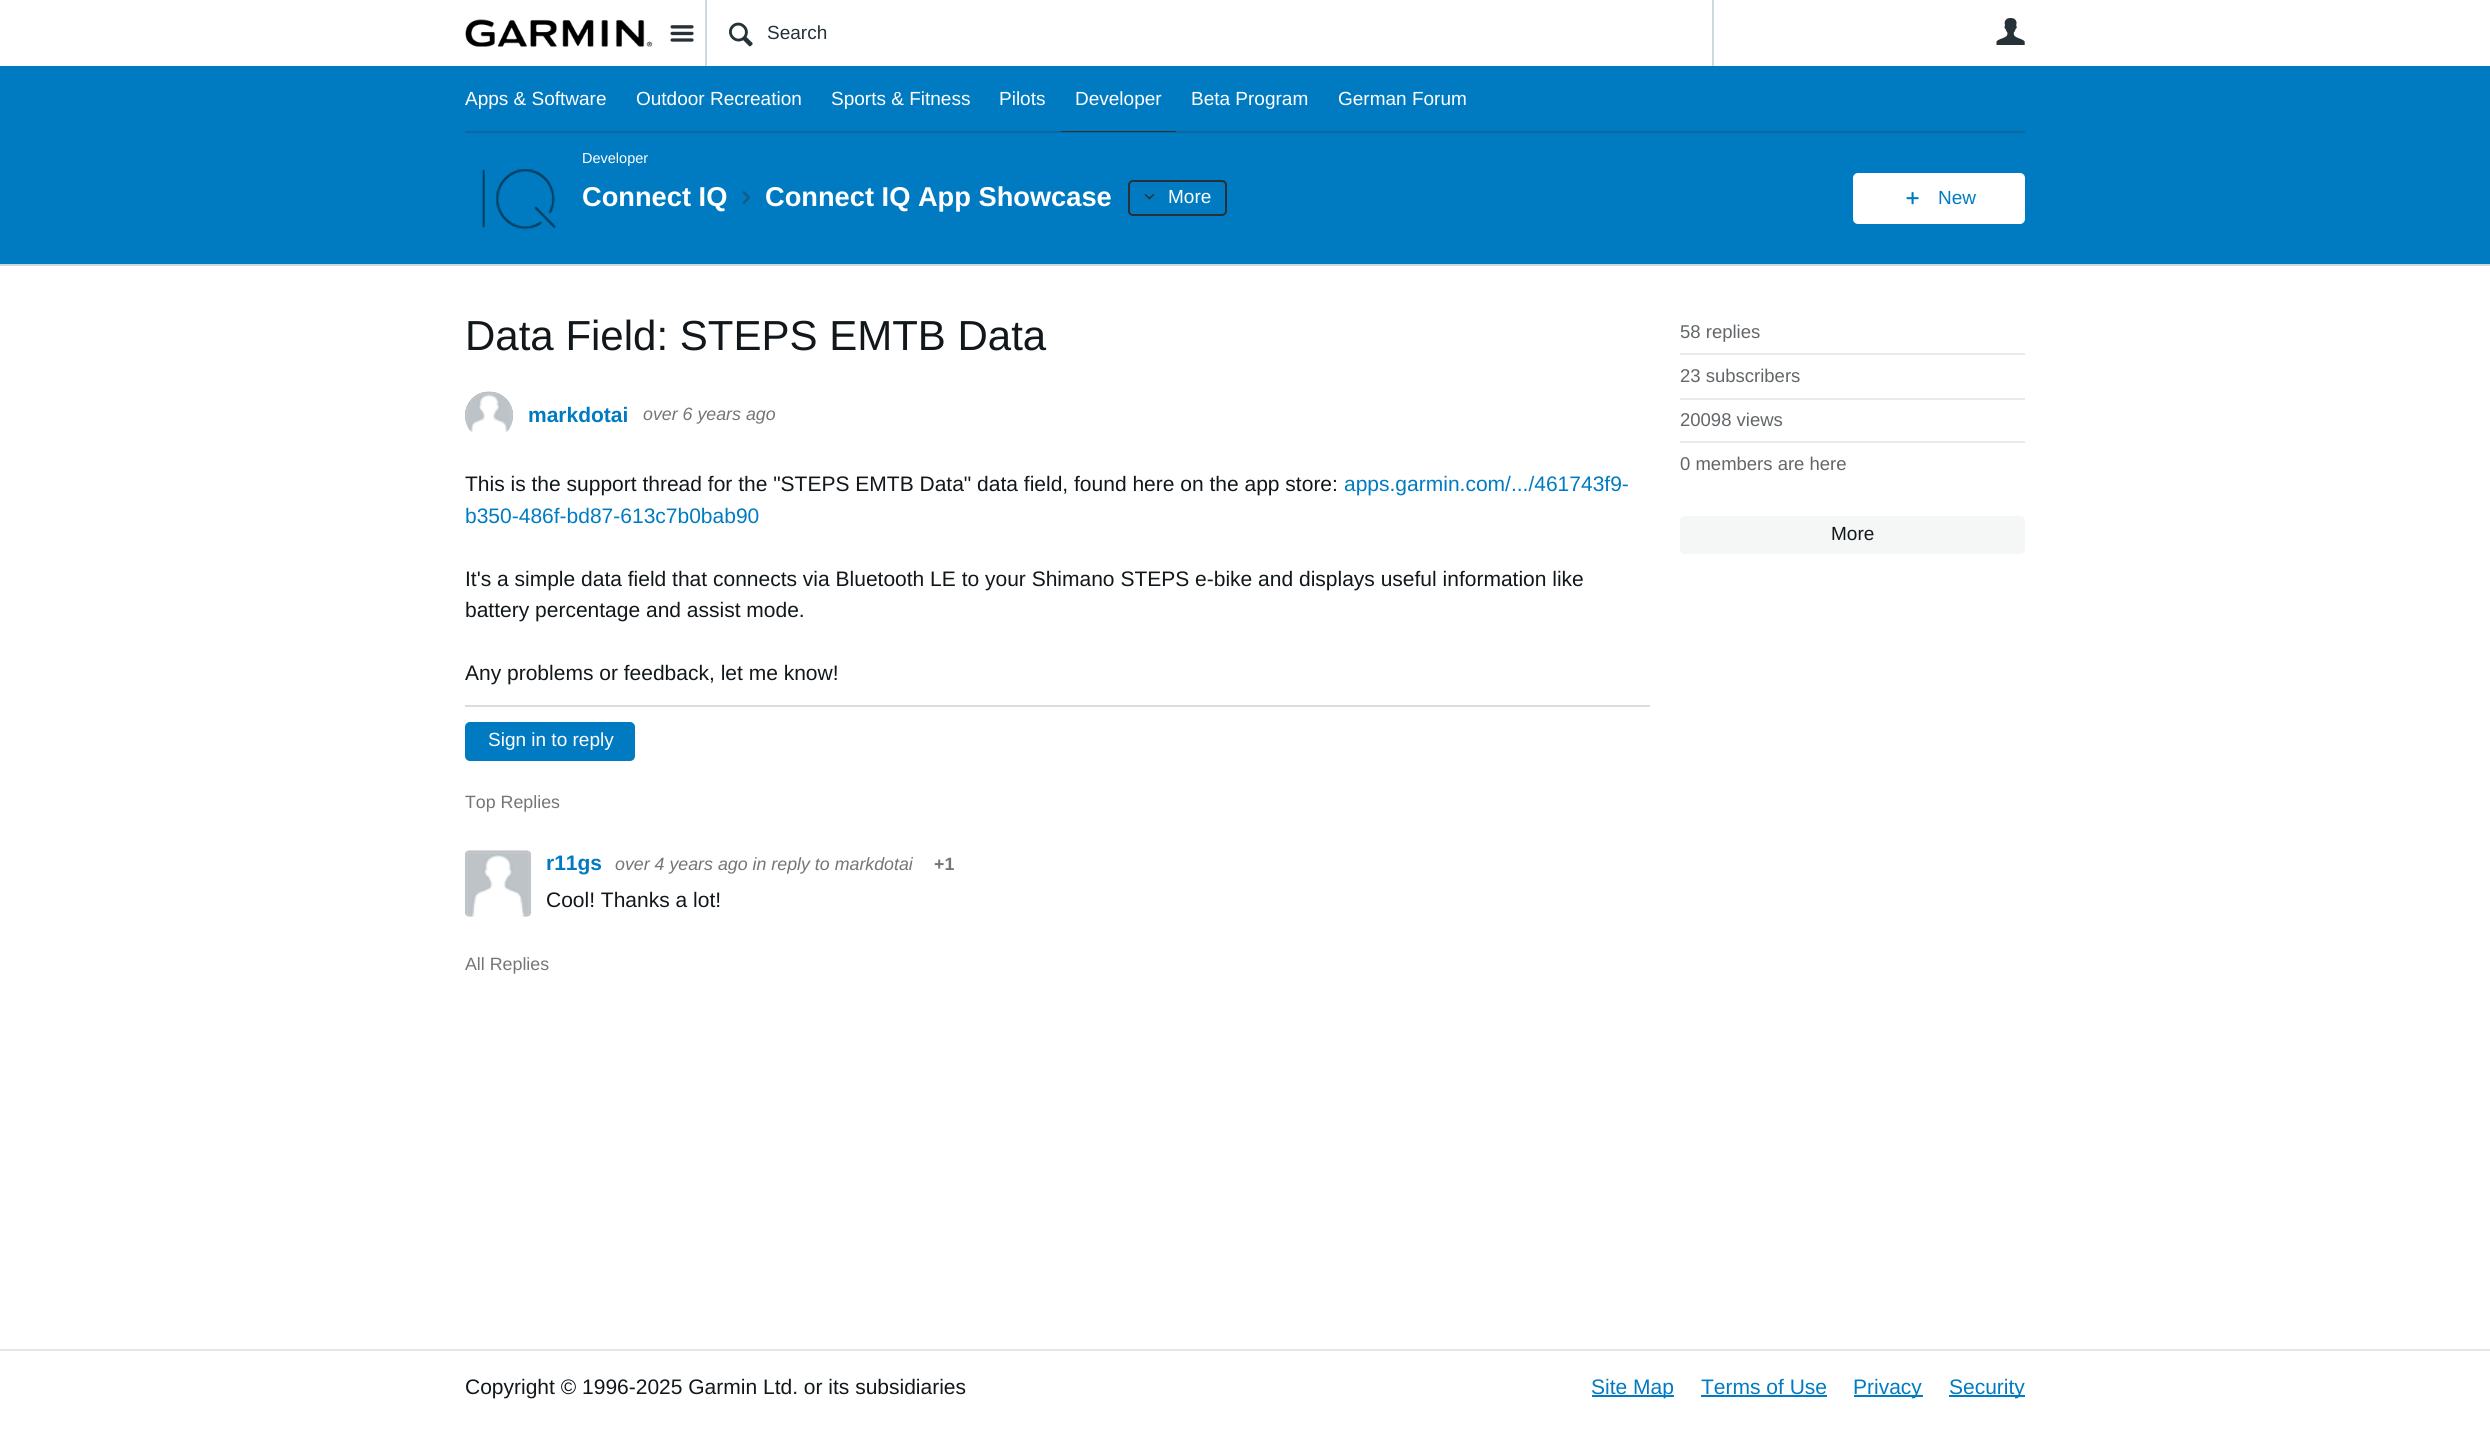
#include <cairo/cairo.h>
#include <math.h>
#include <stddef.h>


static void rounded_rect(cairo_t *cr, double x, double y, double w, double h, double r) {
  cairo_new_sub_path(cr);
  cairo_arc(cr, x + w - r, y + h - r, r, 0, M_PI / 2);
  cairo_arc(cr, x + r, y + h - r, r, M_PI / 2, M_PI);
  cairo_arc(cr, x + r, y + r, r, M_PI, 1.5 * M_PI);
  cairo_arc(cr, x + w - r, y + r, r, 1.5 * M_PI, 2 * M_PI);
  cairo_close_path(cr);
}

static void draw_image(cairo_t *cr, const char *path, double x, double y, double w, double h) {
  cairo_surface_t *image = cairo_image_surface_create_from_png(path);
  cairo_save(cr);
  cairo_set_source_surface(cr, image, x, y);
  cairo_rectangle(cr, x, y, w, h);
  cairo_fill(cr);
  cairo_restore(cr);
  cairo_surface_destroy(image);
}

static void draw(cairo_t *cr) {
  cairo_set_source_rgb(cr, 1, 1, 1);
  cairo_paint(cr);
  draw_image(cr, "images/1.png", 465, 19, 188, 28);
  draw_image(cr, "images/2.png", 670, 25, 24, 17);
  cairo_set_source_rgb(cr, 207 / 255.0, 216 / 255.0, 220 / 255.0);
  cairo_rectangle(cr, 1712, 0, 2, 66);
  cairo_fill(cr);
  cairo_rectangle(cr, 705, 0, 2, 66);
  cairo_fill(cr);
  draw_image(cr, "images/3.png", 729, 22, 24, 25);
  draw_image(cr, "images/4.png", 1996, 18, 29, 27);
  cairo_set_source_rgb(cr, 0, 123 / 255.0, 193 / 255.0);
  cairo_rectangle(cr, 0, 66, 2490, 198);
  cairo_fill(cr);
  cairo_set_source_rgb(cr, 207 / 255.0, 216 / 255.0, 220 / 255.0);
  cairo_rectangle(cr, 0, 264, 2490, 2);
  cairo_fill(cr);
  cairo_set_source_rgb(cr, 10 / 255.0, 105 / 255.0, 159 / 255.0);
  cairo_rectangle(cr, 465, 131, 1560, 2);
  cairo_fill(cr);
  cairo_set_source_rgb(cr, 38 / 255.0, 50 / 255.0, 56 / 255.0);
  cairo_rectangle(cr, 1061, 131, 115, 1);
  cairo_fill(cr);
  draw_image(cr, "images/5.png", 481, 168, 75, 62);
  draw_image(cr, "images/6.png", 482, 169, 74, 61);
  draw_image(cr, "images/7.png", 742, 191, 9, 14);
  rounded_rect(cr, 1129, 181, 97, 34, 4);
  cairo_stroke(cr);
  draw_image(cr, "images/8.png", 1144, 193, 11, 7);
  cairo_set_source_rgb(cr, 1, 1, 1);
  rounded_rect(cr, 1853, 173, 172, 51, 5);
  cairo_fill(cr);
  draw_image(cr, "images/9.png", 1906, 192, 13, 13);
  draw_image(cr, "images/10.png", 465, 391, 48, 42);
  draw_image(cr, "images/11.png", 465, 391, 48, 40);
  cairo_set_source_rgb(cr, 219 / 255.0, 220 / 255.0, 221 / 255.0);
  cairo_rectangle(cr, 465, 705, 1185, 2);
  cairo_fill(cr);
  cairo_set_source_rgb(cr, 0, 123 / 255.0, 193 / 255.0);
  rounded_rect(cr, 465, 722, 170, 39, 5);
  cairo_fill(cr);
  draw_image(cr, "images/12.png", 465, 850, 66, 67);
  draw_image(cr, "images/13.png", 465, 850, 66, 67);
  cairo_set_source_rgb(cr, 234 / 255.0, 234 / 255.0, 234 / 255.0);
  cairo_rectangle(cr, 1680, 353, 345, 2);
  cairo_fill(cr);
  cairo_rectangle(cr, 1680, 398, 345, 2);
  cairo_fill(cr);
  cairo_rectangle(cr, 1680, 441, 345, 2);
  cairo_fill(cr);
  cairo_set_source_rgb(cr, 245 / 255.0, 246 / 255.0, 246 / 255.0);
  rounded_rect(cr, 1680, 516, 345, 38, 5);
  cairo_fill(cr);
  cairo_set_source_rgb(cr, 229 / 255.0, 229 / 255.0, 230 / 255.0);
  cairo_rectangle(cr, 0, 1349, 2490, 2);
  cairo_fill(cr);
  cairo_set_source_rgb(cr, 0, 123 / 255.0, 193 / 255.0);
  cairo_rectangle(cr, 1592, 1395, 82, 2);
  cairo_fill(cr);
  cairo_rectangle(cr, 1701, 1395, 126, 2);
  cairo_fill(cr);
  cairo_rectangle(cr, 1854, 1395, 69, 2);
  cairo_fill(cr);
  cairo_rectangle(cr, 1949, 1395, 76, 2);
  cairo_fill(cr);
  cairo_select_font_face(cr, "Liberation Sans", CAIRO_FONT_SLANT_NORMAL, CAIRO_FONT_WEIGHT_NORMAL);
  cairo_set_font_size(cr, 19);
  cairo_set_source_rgb(cr, 38 / 255.0, 50 / 255.0, 56 / 255.0);
  cairo_move_to(cr, 767, 39);
  cairo_show_text(cr, "Search");
  cairo_set_source_rgb(cr, 1, 1, 1);
  cairo_move_to(cr, 465, 105);
  cairo_show_text(cr, "Apps & Software");
  cairo_move_to(cr, 636, 105);
  cairo_show_text(cr, "Outdoor Recreation");
  cairo_move_to(cr, 831, 105);
  cairo_show_text(cr, "Sports & Fitness");
  cairo_move_to(cr, 999, 105);
  cairo_show_text(cr, "Pilots");
  cairo_move_to(cr, 1075, 105);
  cairo_show_text(cr, "Developer");
  cairo_move_to(cr, 1191, 105);
  cairo_show_text(cr, "Beta Program");
  cairo_move_to(cr, 1338, 105);
  cairo_show_text(cr, "German Forum");
  cairo_set_font_size(cr, 14.5);
  cairo_move_to(cr, 582, 163);
  cairo_show_text(cr, "Developer");
  cairo_select_font_face(cr, "Liberation Sans", CAIRO_FONT_SLANT_NORMAL, CAIRO_FONT_WEIGHT_BOLD);
  cairo_set_font_size(cr, 27.25);
  cairo_move_to(cr, 582, 206);
  cairo_show_text(cr, "Connect IQ");
  cairo_move_to(cr, 765, 206);
  cairo_show_text(cr, "Connect IQ App Showcase");
  cairo_select_font_face(cr, "Liberation Sans", CAIRO_FONT_SLANT_NORMAL, CAIRO_FONT_WEIGHT_NORMAL);
  cairo_set_font_size(cr, 19);
  cairo_move_to(cr, 1168, 203);
  cairo_show_text(cr, "More");
  cairo_set_source_rgb(cr, 0, 123 / 255.0, 193 / 255.0);
  cairo_move_to(cr, 1938, 204);
  cairo_show_text(cr, "New");
  cairo_set_font_size(cr, 42);
  cairo_set_source_rgb(cr, 17 / 255.0, 23 / 255.0, 26 / 255.0);
  cairo_move_to(cr, 465, 350);
  cairo_show_text(cr, "Data Field: STEPS EMTB Data");
  cairo_select_font_face(cr, "Liberation Sans", CAIRO_FONT_SLANT_NORMAL, CAIRO_FONT_WEIGHT_BOLD);
  cairo_set_font_size(cr, 21);
  cairo_set_source_rgb(cr, 0, 123 / 255.0, 193 / 255.0);
  cairo_move_to(cr, 528, 422);
  cairo_show_text(cr, "markdotai");
  cairo_select_font_face(cr, "Liberation Sans", CAIRO_FONT_SLANT_ITALIC, CAIRO_FONT_WEIGHT_NORMAL);
  cairo_set_font_size(cr, 17.8);
  cairo_set_source_rgb(cr, 117 / 255.0, 117 / 255.0, 117 / 255.0);
  cairo_move_to(cr, 643, 420);
  cairo_show_text(cr, "over 6 years ago");
  cairo_select_font_face(cr, "Liberation Sans", CAIRO_FONT_SLANT_NORMAL, CAIRO_FONT_WEIGHT_NORMAL);
  cairo_set_font_size(cr, 21);
  cairo_set_source_rgb(cr, 17 / 255.0, 23 / 255.0, 26 / 255.0);
  cairo_move_to(cr, 465, 491);
  cairo_show_text(cr, "This is the support thread for the \"STEPS EMTB Data\" data field, found here on the app store:");
  cairo_set_source_rgb(cr, 0, 123 / 255.0, 193 / 255.0);
  cairo_move_to(cr, 1344, 491);
  cairo_show_text(cr, "apps.garmin.com/.../461743f9-");
  cairo_move_to(cr, 465, 523);
  cairo_show_text(cr, "b350-486f-bd87-613c7b0bab90");
  cairo_set_source_rgb(cr, 17 / 255.0, 23 / 255.0, 26 / 255.0);
  cairo_move_to(cr, 465, 586);
  cairo_show_text(cr, "It's a simple data field that connects via Bluetooth LE to your Shimano STEPS e-bike and displays useful information like");
  cairo_move_to(cr, 465, 617);
  cairo_show_text(cr, "battery percentage and assist mode.");
  cairo_move_to(cr, 465, 680);
  cairo_show_text(cr, "Any problems or feedback, let me know!");
  cairo_set_font_size(cr, 19);
  cairo_set_source_rgb(cr, 1, 1, 1);
  cairo_move_to(cr, 488, 746);
  cairo_show_text(cr, "Sign in to reply");
  cairo_set_font_size(cr, 17.8);
  cairo_set_source_rgb(cr, 117 / 255.0, 117 / 255.0, 117 / 255.0);
  cairo_move_to(cr, 465, 808);
  cairo_show_text(cr, "Top Replies");
  cairo_select_font_face(cr, "Liberation Sans", CAIRO_FONT_SLANT_NORMAL, CAIRO_FONT_WEIGHT_BOLD);
  cairo_set_font_size(cr, 21);
  cairo_set_source_rgb(cr, 0, 123 / 255.0, 193 / 255.0);
  cairo_move_to(cr, 546, 870);
  cairo_show_text(cr, "r11gs");
  cairo_select_font_face(cr, "Liberation Sans", CAIRO_FONT_SLANT_ITALIC, CAIRO_FONT_WEIGHT_NORMAL);
  cairo_set_font_size(cr, 17.8);
  cairo_set_source_rgb(cr, 117 / 255.0, 117 / 255.0, 117 / 255.0);
  cairo_move_to(cr, 615, 870);
  cairo_show_text(cr, "over 4 years ago in reply to markdotai");
  cairo_select_font_face(cr, "Liberation Sans", CAIRO_FONT_SLANT_NORMAL, CAIRO_FONT_WEIGHT_BOLD);
  cairo_move_to(cr, 934, 870);
  cairo_show_text(cr, "+1");
  cairo_select_font_face(cr, "Liberation Sans", CAIRO_FONT_SLANT_NORMAL, CAIRO_FONT_WEIGHT_NORMAL);
  cairo_set_font_size(cr, 21);
  cairo_set_source_rgb(cr, 17 / 255.0, 23 / 255.0, 26 / 255.0);
  cairo_move_to(cr, 546, 907);
  cairo_show_text(cr, "Cool! Thanks a lot!");
  cairo_set_font_size(cr, 17.8);
  cairo_set_source_rgb(cr, 117 / 255.0, 117 / 255.0, 117 / 255.0);
  cairo_move_to(cr, 465, 970);
  cairo_show_text(cr, "All Replies");
  cairo_set_font_size(cr, 18.5);
  cairo_set_source_rgb(cr, 98 / 255.0, 102 / 255.0, 104 / 255.0);
  cairo_move_to(cr, 1680, 338);
  cairo_show_text(cr, "58 replies");
  cairo_move_to(cr, 1680, 382);
  cairo_show_text(cr, "23 subscribers");
  cairo_move_to(cr, 1680, 426);
  cairo_show_text(cr, "20098 views");
  cairo_move_to(cr, 1680, 470);
  cairo_show_text(cr, "0 members are here");
  cairo_set_font_size(cr, 19);
  cairo_set_source_rgb(cr, 17 / 255.0, 23 / 255.0, 26 / 255.0);
  cairo_move_to(cr, 1831, 540);
  cairo_show_text(cr, "More");
  cairo_set_font_size(cr, 21);
  cairo_move_to(cr, 465, 1394);
  cairo_show_text(cr, "Copyright © 1996-2025 Garmin Ltd. or its subsidiaries");
  cairo_set_source_rgb(cr, 0, 123 / 255.0, 193 / 255.0);
  cairo_move_to(cr, 1591, 1394);
  cairo_show_text(cr, "Site Map");
  cairo_move_to(cr, 1701, 1394);
  cairo_show_text(cr, "Terms of Use");
  cairo_move_to(cr, 1853, 1394);
  cairo_show_text(cr, "Privacy");
  cairo_move_to(cr, 1949, 1394);
  cairo_show_text(cr, "Security");
}

int main(void) {
  cairo_surface_t *surface = cairo_image_surface_create(CAIRO_FORMAT_RGB24, 2490, 1444);
  cairo_t *cr = cairo_create(surface);
  cairo_font_options_t *options = cairo_font_options_create();
  cairo_font_options_set_hint_metrics(options, CAIRO_HINT_METRICS_OFF);
  cairo_font_options_set_hint_style(options, CAIRO_HINT_STYLE_NONE);
  cairo_set_font_options(cr, options);
  cairo_set_miter_limit(cr, 4);
  draw(cr);
  cairo_surface_write_to_png(surface, "out.png");
  cairo_font_options_destroy(options);
  cairo_destroy(cr);
  cairo_surface_destroy(surface);
  return 0;
}
